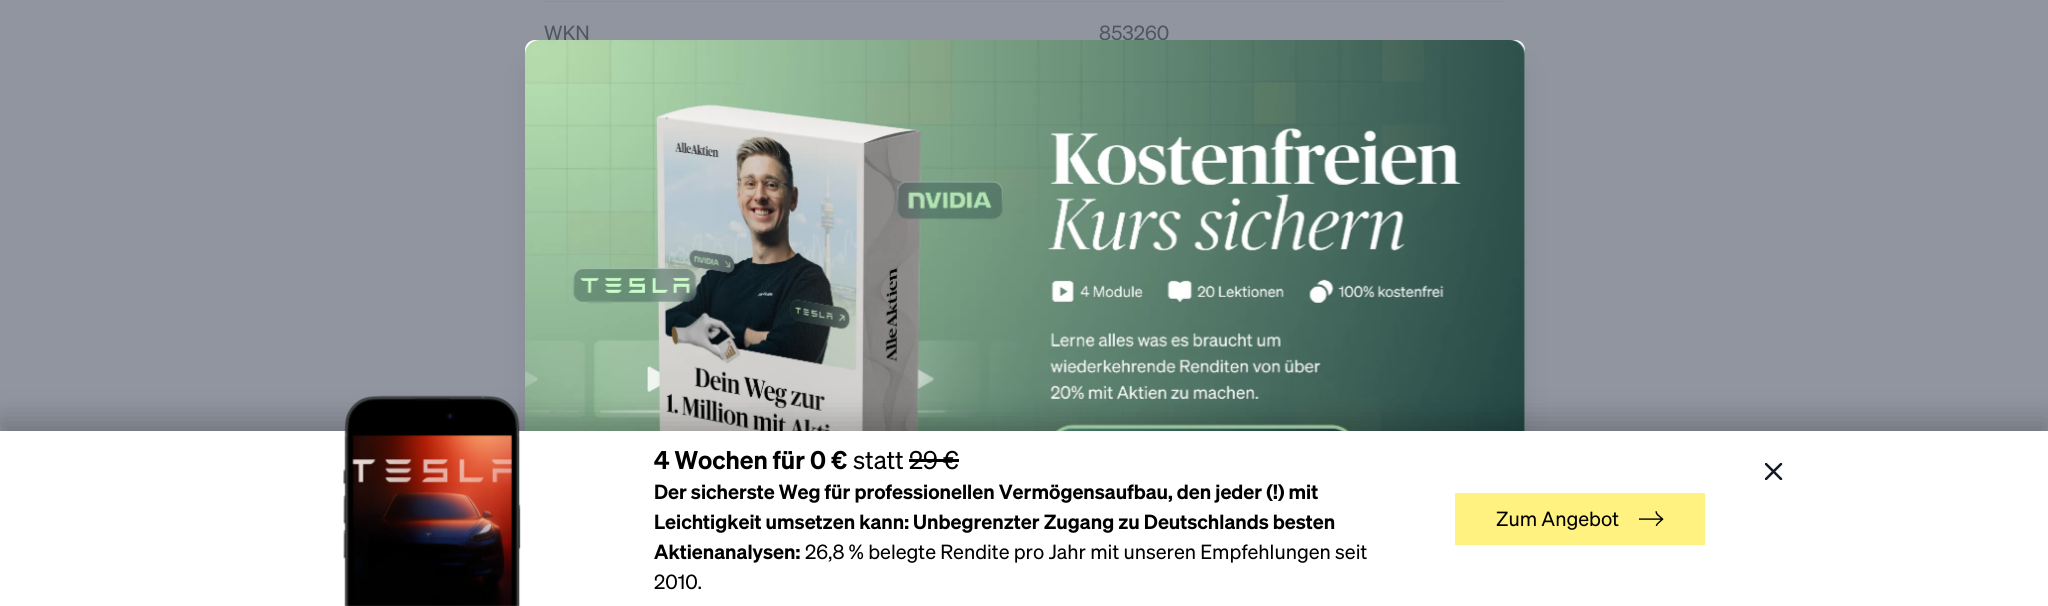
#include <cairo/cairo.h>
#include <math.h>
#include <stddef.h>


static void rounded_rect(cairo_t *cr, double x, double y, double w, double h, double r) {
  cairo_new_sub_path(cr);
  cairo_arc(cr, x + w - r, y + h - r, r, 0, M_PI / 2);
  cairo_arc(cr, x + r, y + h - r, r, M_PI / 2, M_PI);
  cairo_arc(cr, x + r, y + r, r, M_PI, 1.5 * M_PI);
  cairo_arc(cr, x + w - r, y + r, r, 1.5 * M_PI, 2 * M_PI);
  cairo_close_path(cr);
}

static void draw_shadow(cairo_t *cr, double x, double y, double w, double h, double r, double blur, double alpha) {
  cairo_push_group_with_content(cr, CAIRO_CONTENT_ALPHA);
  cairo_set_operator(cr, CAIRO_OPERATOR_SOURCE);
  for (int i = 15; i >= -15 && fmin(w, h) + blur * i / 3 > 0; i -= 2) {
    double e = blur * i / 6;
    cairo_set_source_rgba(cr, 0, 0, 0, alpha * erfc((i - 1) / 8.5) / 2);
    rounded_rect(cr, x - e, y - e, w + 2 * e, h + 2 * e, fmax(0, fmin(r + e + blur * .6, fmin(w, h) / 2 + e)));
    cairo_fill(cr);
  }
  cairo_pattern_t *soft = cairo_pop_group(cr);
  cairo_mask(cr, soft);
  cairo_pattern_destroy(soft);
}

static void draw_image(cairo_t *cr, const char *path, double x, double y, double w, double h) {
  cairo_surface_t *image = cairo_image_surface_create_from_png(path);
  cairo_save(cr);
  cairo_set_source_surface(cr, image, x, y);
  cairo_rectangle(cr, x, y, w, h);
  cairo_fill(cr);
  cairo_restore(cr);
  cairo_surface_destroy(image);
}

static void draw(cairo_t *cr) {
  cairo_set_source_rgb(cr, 144 / 255.0, 149 / 255.0, 160 / 255.0);
  cairo_paint(cr);
  cairo_set_source_rgb(cr, 0, 0, 0);
  draw_shadow(cr, 531, 71, 988, 514, 4, 15.5, 0.1);
  cairo_set_source_rgb(cr, 138 / 255.0, 143 / 255.0, 155 / 255.0);
  cairo_rectangle(cr, 544, 1, 961, 1);
  cairo_fill(cr);
  cairo_select_font_face(cr, "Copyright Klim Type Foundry", CAIRO_FONT_SLANT_NORMAL, CAIRO_FONT_WEIGHT_NORMAL);
  cairo_set_font_size(cr, 20);
  cairo_set_source_rgb(cr, 80 / 255.0, 86 / 255.0, 96 / 255.0);
  cairo_move_to(cr, 544, 40);
  cairo_show_text(cr, "WKN");
  cairo_move_to(cr, 1099, 40);
  cairo_show_text(cr, "853260");
  cairo_set_source_rgb(cr, 1, 1, 1);
  rounded_rect(cr, 525, 40, 1000, 526, 10);
  cairo_fill(cr);
  draw_image(cr, "images/1.png", 525, 40, 1000, 391);
  cairo_set_source_rgb(cr, 0, 0, 0);
  draw_shadow(cr, 0, 419, 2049, 175, 0, 14, 0.21);
  cairo_set_source_rgb(cr, 1, 1, 1);
  cairo_rectangle(cr, 0, 431, 2048, 175);
  cairo_fill(cr);
  draw_image(cr, "images/2.png", 343, 395, 178, 211);
  cairo_select_font_face(cr, "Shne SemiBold", CAIRO_FONT_SLANT_NORMAL, CAIRO_FONT_WEIGHT_NORMAL);
  cairo_set_font_size(cr, 25);
  cairo_set_source_rgb(cr, 0, 0, 0);
  cairo_move_to(cr, 654, 469);
  cairo_show_text(cr, "4 Wochen für 0 €");
  cairo_select_font_face(cr, "Copyright Klim Type Foundry", CAIRO_FONT_SLANT_NORMAL, CAIRO_FONT_WEIGHT_NORMAL);
  cairo_move_to(cr, 853, 469);
  cairo_show_text(cr, "statt 29 €");
  cairo_rectangle(cr, 909, 459, 50, 3);
  cairo_fill(cr);
  cairo_select_font_face(cr, "Shne SemiBold", CAIRO_FONT_SLANT_NORMAL, CAIRO_FONT_WEIGHT_NORMAL);
  cairo_set_font_size(cr, 20);
  cairo_move_to(cr, 654, 499);
  cairo_show_text(cr, "Der sicherste Weg für professionellen Vermögensaufbau, den jeder (!) mit");
  cairo_move_to(cr, 654, 529);
  cairo_show_text(cr, "Leichtigkeit umsetzen kann: Unbegrenzter Zugang zu Deutschlands besten");
  cairo_move_to(cr, 654, 559);
  cairo_show_text(cr, "Aktienanalysen:");
  cairo_select_font_face(cr, "Copyright Klim Type Foundry", CAIRO_FONT_SLANT_NORMAL, CAIRO_FONT_WEIGHT_NORMAL);
  cairo_move_to(cr, 805, 559);
  cairo_show_text(cr, "26,8 % belegte Rendite pro Jahr mit unseren Empfehlungen seit");
  cairo_move_to(cr, 654, 589);
  cairo_show_text(cr, "2010.");
  cairo_save(cr);
  cairo_rectangle(cr, 1765, 463, 18, 17);
  cairo_clip(cr);
  cairo_new_path(cr);
  cairo_move_to(cr, 1766, 479);
  cairo_line_to(cr, 1781, 464);
  cairo_move_to(cr, 1766, 464);
  cairo_line_to(cr, 1781, 479);
  cairo_set_source_rgb(cr, 17 / 255.0, 24 / 255.0, 39 / 255.0);
  cairo_set_line_width(cr, 2.5);
  cairo_set_line_cap(cr, CAIRO_LINE_CAP_ROUND);
  cairo_set_line_join(cr, CAIRO_LINE_JOIN_ROUND);
  cairo_stroke(cr);
  cairo_restore(cr);
  cairo_set_source_rgb(cr, 1, 242 / 255.0, 129 / 255.0);
  cairo_rectangle(cr, 1455, 493, 250, 52);
  cairo_fill(cr);
  cairo_set_source_rgb(cr, 0, 0, 0);
  cairo_move_to(cr, 1496, 526);
  cairo_show_text(cr, "Zum Angebot");
  draw_image(cr, "images/3.png", 1639, 511, 25, 15);
}

int main(void) {
  cairo_surface_t *surface = cairo_image_surface_create(CAIRO_FORMAT_RGB24, 2048, 606);
  cairo_t *cr = cairo_create(surface);
  cairo_font_options_t *options = cairo_font_options_create();
  cairo_font_options_set_hint_metrics(options, CAIRO_HINT_METRICS_OFF);
  cairo_font_options_set_hint_style(options, CAIRO_HINT_STYLE_NONE);
  cairo_set_font_options(cr, options);
  cairo_set_miter_limit(cr, 4);
  draw(cr);
  cairo_surface_write_to_png(surface, "out.png");
  cairo_font_options_destroy(options);
  cairo_destroy(cr);
  cairo_surface_destroy(surface);
  return 0;
}
